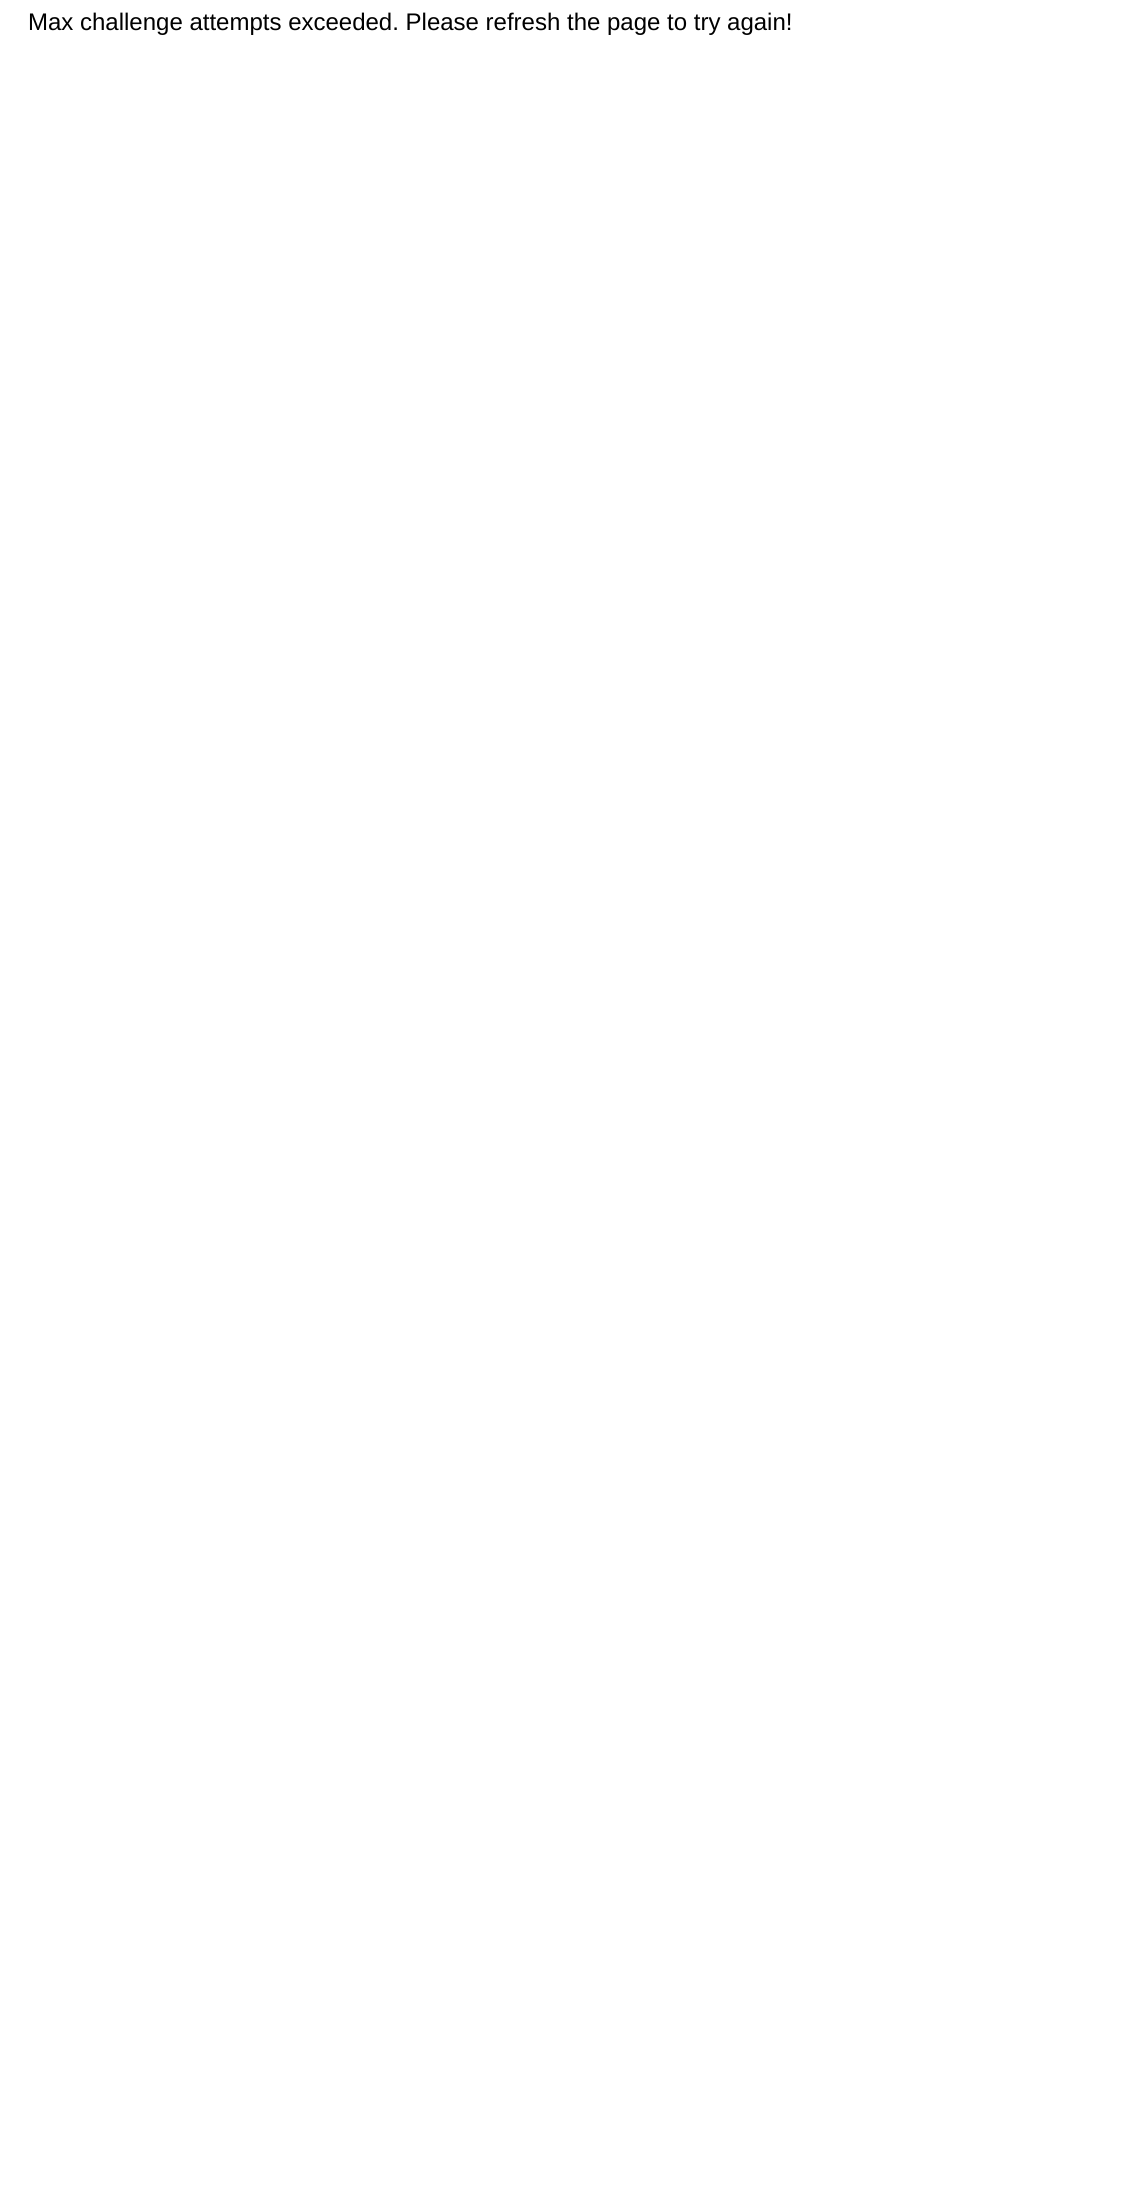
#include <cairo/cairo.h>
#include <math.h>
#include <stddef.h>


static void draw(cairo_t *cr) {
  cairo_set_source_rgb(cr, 1, 1, 1);
  cairo_paint(cr);
  cairo_select_font_face(cr, "Liberation Sans", CAIRO_FONT_SLANT_NORMAL, CAIRO_FONT_WEIGHT_NORMAL);
  cairo_set_font_size(cr, 24);
  cairo_set_source_rgb(cr, 0, 0, 0);
  cairo_move_to(cr, 28, 30);
  cairo_show_text(cr, "Max challenge attempts exceeded. Please refresh the page to try again!");
}

int main(void) {
  cairo_surface_t *surface = cairo_image_surface_create(CAIRO_FORMAT_RGB24, 1134, 2199);
  cairo_t *cr = cairo_create(surface);
  cairo_font_options_t *options = cairo_font_options_create();
  cairo_font_options_set_hint_metrics(options, CAIRO_HINT_METRICS_OFF);
  cairo_font_options_set_hint_style(options, CAIRO_HINT_STYLE_NONE);
  cairo_set_font_options(cr, options);
  cairo_set_miter_limit(cr, 4);
  draw(cr);
  cairo_surface_write_to_png(surface, "out.png");
  cairo_font_options_destroy(options);
  cairo_destroy(cr);
  cairo_surface_destroy(surface);
  return 0;
}
